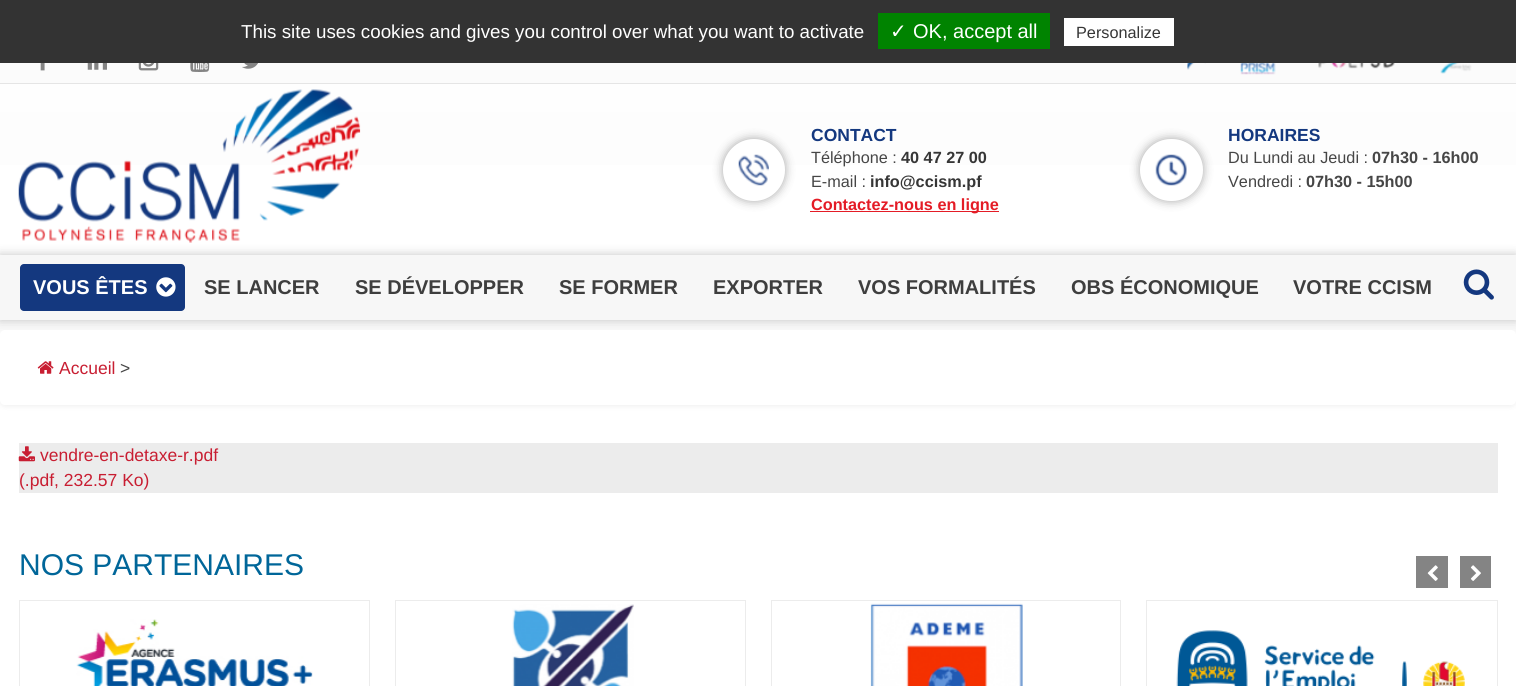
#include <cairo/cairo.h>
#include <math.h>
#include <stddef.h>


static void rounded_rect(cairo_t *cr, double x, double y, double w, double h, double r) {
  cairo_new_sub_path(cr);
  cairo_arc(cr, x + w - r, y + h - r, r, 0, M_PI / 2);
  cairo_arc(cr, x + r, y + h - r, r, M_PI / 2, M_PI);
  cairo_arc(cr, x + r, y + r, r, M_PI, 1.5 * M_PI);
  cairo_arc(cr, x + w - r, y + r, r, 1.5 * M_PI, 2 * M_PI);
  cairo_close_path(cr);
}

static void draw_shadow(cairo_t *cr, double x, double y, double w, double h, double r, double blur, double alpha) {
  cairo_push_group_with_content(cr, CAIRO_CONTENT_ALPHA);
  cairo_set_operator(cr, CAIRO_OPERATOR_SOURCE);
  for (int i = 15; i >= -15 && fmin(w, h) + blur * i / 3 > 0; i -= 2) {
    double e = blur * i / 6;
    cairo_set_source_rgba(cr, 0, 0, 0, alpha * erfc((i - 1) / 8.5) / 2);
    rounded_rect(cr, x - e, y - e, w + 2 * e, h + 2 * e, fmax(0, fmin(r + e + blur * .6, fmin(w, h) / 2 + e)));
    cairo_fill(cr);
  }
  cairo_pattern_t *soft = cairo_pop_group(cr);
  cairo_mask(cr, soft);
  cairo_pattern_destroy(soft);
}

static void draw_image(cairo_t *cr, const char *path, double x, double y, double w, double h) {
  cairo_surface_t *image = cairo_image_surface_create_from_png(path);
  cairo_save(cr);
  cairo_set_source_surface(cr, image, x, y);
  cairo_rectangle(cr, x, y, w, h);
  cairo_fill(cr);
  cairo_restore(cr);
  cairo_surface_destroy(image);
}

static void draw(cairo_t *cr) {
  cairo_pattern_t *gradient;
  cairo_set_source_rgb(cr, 1, 1, 1);
  cairo_paint(cr);
  cairo_set_source_rgb(cr, 0, 0, 0);
  draw_shadow(cr, 0, 34, 1516, 372, 5, 3, 0.07);
  gradient = cairo_pattern_create_linear(758, 32, 758, 405);
  cairo_pattern_add_color_stop_rgba(gradient, 0, 1, 1, 1, 1);
  cairo_pattern_add_color_stop_rgba(gradient, 1, 248 / 255.0, 248 / 255.0, 248 / 255.0, 1);
  cairo_set_source(cr, gradient);
  cairo_pattern_destroy(gradient);
  rounded_rect(cr, 0, 33, 1516, 372, 5);
  cairo_fill(cr);
  cairo_set_source_rgb(cr, 51 / 255.0, 51 / 255.0, 51 / 255.0);
  cairo_rectangle(cr, 0, 0, 1516, 63);
  cairo_fill(cr);
  cairo_set_source_rgb(cr, 0, 131 / 255.0, 0);
  cairo_rectangle(cr, 878, 13, 172, 36);
  cairo_fill(cr);
  cairo_set_source_rgb(cr, 1, 1, 1);
  cairo_rectangle(cr, 1064, 18, 110, 28);
  cairo_fill(cr);
  cairo_rectangle(cr, 0, 165, 1516, 90);
  cairo_fill(cr);
  cairo_set_source_rgb(cr, 251 / 255.0, 251 / 255.0, 251 / 255.0);
  cairo_rectangle(cr, 0, 63, 1516, 20);
  cairo_fill(cr);
  cairo_set_source_rgb(cr, 229 / 255.0, 229 / 255.0, 229 / 255.0);
  cairo_rectangle(cr, 0, 83, 1516, 1);
  cairo_fill(cr);
  draw_image(cr, "images/1.png", 40, 63, 5, 8);
  draw_image(cr, "images/2.png", 87, 63, 20, 7);
  draw_image(cr, "images/3.png", 138, 63, 21, 8);
  draw_image(cr, "images/4.png", 190, 63, 20, 9);
  draw_image(cr, "images/5.png", 242, 63, 16, 6);
  draw_image(cr, "images/6.png", 1187, 63, 19, 7);
  draw_image(cr, "images/7.png", 1240, 63, 36, 12);
  draw_image(cr, "images/8.png", 1318, 63, 77, 6);
  draw_image(cr, "images/9.png", 1440, 63, 32, 11);
  draw_image(cr, "images/10.png", 18, 89, 343, 154);
  cairo_set_source_rgb(cr, 0, 0, 0);
  draw_shadow(cr, 723, 139, 62, 62, 31, 5, 0.35);
  cairo_set_source_rgb(cr, 1, 1, 1);
  cairo_arc(cr, 754, 170, 31, 0, 2 * M_PI);
  cairo_fill(cr);
  draw_image(cr, "images/11.png", 738, 154, 31, 32);
  cairo_set_source_rgb(cr, 228 / 255.0, 28 / 255.0, 38 / 255.0);
  cairo_rectangle(cr, 810, 211, 189, 1);
  cairo_fill(cr);
  cairo_set_source_rgb(cr, 0, 0, 0);
  draw_shadow(cr, 1140, 139, 63, 62, 31, 5, 0.35);
  cairo_set_source_rgb(cr, 1, 1, 1);
  rounded_rect(cr, 1140, 139, 63, 62, 31);
  cairo_fill(cr);
  draw_image(cr, "images/12.png", 1155, 154, 32, 32);
  cairo_set_source_rgb(cr, 85 / 255.0, 85 / 255.0, 85 / 255.0);
  draw_shadow(cr, 0, 255, 1516, 65, 0, 5, 0.35);
  cairo_set_source_rgb(cr, 247 / 255.0, 247 / 255.0, 247 / 255.0);
  cairo_rectangle(cr, 0, 255, 1516, 65);
  cairo_fill(cr);
  cairo_set_source_rgb(cr, 20 / 255.0, 56 / 255.0, 127 / 255.0);
  rounded_rect(cr, 20, 264, 165, 47, 4);
  cairo_fill(cr);
  draw_image(cr, "images/13.png", 156, 277, 20, 20);
  draw_image(cr, "images/14.png", 1463, 269, 31, 31);
  cairo_set_source_rgb(cr, 1, 1, 1);
  rounded_rect(cr, 0, 330, 1516, 75, 5);
  cairo_fill(cr);
  draw_image(cr, "images/15.png", 37, 361, 17, 13);
  cairo_set_source_rgb(cr, 236 / 255.0, 236 / 255.0, 236 / 255.0);
  cairo_rectangle(cr, 19, 443, 1479, 50);
  cairo_fill(cr);
  draw_image(cr, "images/16.png", 18, 446, 17, 16);
  cairo_set_source_rgb(cr, 132 / 255.0, 132 / 255.0, 132 / 255.0);
  cairo_rectangle(cr, 1416, 556, 32, 32);
  cairo_fill(cr);
  draw_image(cr, "images/17.png", 1427, 565, 11, 16);
  cairo_rectangle(cr, 1460, 556, 31, 32);
  cairo_fill(cr);
  draw_image(cr, "images/18.png", 1470, 565, 11, 16);
  cairo_rectangle(cr, 19.5, 600.5, 350, 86);
  cairo_set_source_rgb(cr, 236 / 255.0, 236 / 255.0, 236 / 255.0);
  cairo_set_line_width(cr, 1);
  cairo_stroke(cr);
  draw_image(cr, "images/19.png", 76, 619, 237, 67);
  cairo_rectangle(cr, 395.5, 600.5, 350, 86);
  cairo_stroke(cr);
  draw_image(cr, "images/20.png", 512, 604, 122, 82);
  cairo_rectangle(cr, 771.5, 600.5, 349, 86);
  cairo_stroke(cr);
  draw_image(cr, "images/21.png", 870, 603, 153, 83);
  cairo_rectangle(cr, 1146.5, 600.5, 351, 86);
  cairo_stroke(cr);
  draw_image(cr, "images/22.png", 1176, 630, 289, 56);
  cairo_select_font_face(cr, "Liberation Sans", CAIRO_FONT_SLANT_NORMAL, CAIRO_FONT_WEIGHT_NORMAL);
  cairo_set_font_size(cr, 18.75);
  cairo_set_source_rgb(cr, 1, 1, 1);
  cairo_move_to(cr, 241, 38);
  cairo_show_text(cr, "This site uses cookies and gives you control over what you want to activate");
  cairo_select_font_face(cr, "DejaVu Sans", CAIRO_FONT_SLANT_NORMAL, CAIRO_FONT_WEIGHT_NORMAL);
  cairo_set_font_size(cr, 20);
  cairo_move_to(cr, 890, 38);
  cairo_show_text(cr, "✓");
  cairo_select_font_face(cr, "Liberation Sans", CAIRO_FONT_SLANT_NORMAL, CAIRO_FONT_WEIGHT_NORMAL);
  cairo_move_to(cr, 913, 38);
  cairo_show_text(cr, "OK, accept all");
  cairo_set_font_size(cr, 16.25);
  cairo_set_source_rgb(cr, 54 / 255.0, 54 / 255.0, 54 / 255.0);
  cairo_move_to(cr, 1076, 38);
  cairo_show_text(cr, "Personalize");
  cairo_select_font_face(cr, "Liberation Sans", CAIRO_FONT_SLANT_NORMAL, CAIRO_FONT_WEIGHT_BOLD);
  cairo_set_font_size(cr, 17.5);
  cairo_set_source_rgb(cr, 20 / 255.0, 56 / 255.0, 127 / 255.0);
  cairo_move_to(cr, 811, 141);
  cairo_show_text(cr, "CONTACT");
  cairo_select_font_face(cr, "Liberation Sans", CAIRO_FONT_SLANT_NORMAL, CAIRO_FONT_WEIGHT_NORMAL);
  cairo_set_font_size(cr, 16.25);
  cairo_set_source_rgb(cr, 70 / 255.0, 70 / 255.0, 70 / 255.0);
  cairo_move_to(cr, 811, 163);
  cairo_show_text(cr, "Téléphone :");
  cairo_select_font_face(cr, "Liberation Sans", CAIRO_FONT_SLANT_NORMAL, CAIRO_FONT_WEIGHT_BOLD);
  cairo_set_source_rgb(cr, 54 / 255.0, 54 / 255.0, 54 / 255.0);
  cairo_move_to(cr, 901, 163);
  cairo_show_text(cr, "40 47 27 00");
  cairo_select_font_face(cr, "Liberation Sans", CAIRO_FONT_SLANT_NORMAL, CAIRO_FONT_WEIGHT_NORMAL);
  cairo_set_source_rgb(cr, 70 / 255.0, 70 / 255.0, 70 / 255.0);
  cairo_move_to(cr, 811, 187);
  cairo_show_text(cr, "E-mail :");
  cairo_select_font_face(cr, "Liberation Sans", CAIRO_FONT_SLANT_NORMAL, CAIRO_FONT_WEIGHT_BOLD);
  cairo_set_source_rgb(cr, 54 / 255.0, 54 / 255.0, 54 / 255.0);
  cairo_move_to(cr, 870, 187);
  cairo_show_text(cr, "info@ccism.pf");
  cairo_set_source_rgb(cr, 228 / 255.0, 28 / 255.0, 38 / 255.0);
  cairo_move_to(cr, 811, 210);
  cairo_show_text(cr, "Contactez-nous en ligne");
  cairo_set_font_size(cr, 17.5);
  cairo_set_source_rgb(cr, 20 / 255.0, 56 / 255.0, 127 / 255.0);
  cairo_move_to(cr, 1228, 141);
  cairo_show_text(cr, "HORAIRES");
  cairo_select_font_face(cr, "Liberation Sans", CAIRO_FONT_SLANT_NORMAL, CAIRO_FONT_WEIGHT_NORMAL);
  cairo_set_font_size(cr, 16.25);
  cairo_set_source_rgb(cr, 70 / 255.0, 70 / 255.0, 70 / 255.0);
  cairo_move_to(cr, 1228, 163);
  cairo_show_text(cr, "Du Lundi au Jeudi :");
  cairo_select_font_face(cr, "Liberation Sans", CAIRO_FONT_SLANT_NORMAL, CAIRO_FONT_WEIGHT_BOLD);
  cairo_move_to(cr, 1372, 163);
  cairo_show_text(cr, "07h30 - 16h00");
  cairo_select_font_face(cr, "Liberation Sans", CAIRO_FONT_SLANT_NORMAL, CAIRO_FONT_WEIGHT_NORMAL);
  cairo_move_to(cr, 1228, 187);
  cairo_show_text(cr, "Vendredi :");
  cairo_select_font_face(cr, "Liberation Sans", CAIRO_FONT_SLANT_NORMAL, CAIRO_FONT_WEIGHT_BOLD);
  cairo_move_to(cr, 1306, 187);
  cairo_show_text(cr, "07h30 - 15h00");
  cairo_set_font_size(cr, 20);
  cairo_set_source_rgb(cr, 1, 1, 1);
  cairo_move_to(cr, 33, 294);
  cairo_show_text(cr, "VOUS ÊTES");
  cairo_set_source_rgb(cr, 62 / 255.0, 62 / 255.0, 62 / 255.0);
  cairo_move_to(cr, 204, 294);
  cairo_show_text(cr, "SE LANCER");
  cairo_move_to(cr, 355, 294);
  cairo_show_text(cr, "SE DÉVELOPPER");
  cairo_move_to(cr, 559, 294);
  cairo_show_text(cr, "SE FORMER");
  cairo_move_to(cr, 713, 294);
  cairo_show_text(cr, "EXPORTER");
  cairo_move_to(cr, 858, 294);
  cairo_show_text(cr, "VOS FORMALITÉS");
  cairo_move_to(cr, 1071, 294);
  cairo_show_text(cr, "OBS ÉCONOMIQUE");
  cairo_move_to(cr, 1293, 294);
  cairo_show_text(cr, "VOTRE CCISM");
  cairo_select_font_face(cr, "Liberation Sans", CAIRO_FONT_SLANT_NORMAL, CAIRO_FONT_WEIGHT_NORMAL);
  cairo_set_font_size(cr, 17.5);
  cairo_set_source_rgb(cr, 200 / 255.0, 30 / 255.0, 50 / 255.0);
  cairo_move_to(cr, 59, 374);
  cairo_show_text(cr, "Accueil");
  cairo_set_source_rgb(cr, 70 / 255.0, 70 / 255.0, 70 / 255.0);
  cairo_move_to(cr, 120, 374);
  cairo_show_text(cr, ">");
  cairo_set_source_rgb(cr, 200 / 255.0, 30 / 255.0, 50 / 255.0);
  cairo_move_to(cr, 40, 461);
  cairo_show_text(cr, "vendre-en-detaxe-r.pdf");
  cairo_move_to(cr, 19, 486);
  cairo_show_text(cr, "(.pdf, 232.57 Ko)");
  cairo_set_font_size(cr, 30);
  cairo_set_source_rgb(cr, 0, 102 / 255.0, 153 / 255.0);
  cairo_move_to(cr, 19, 575);
  cairo_show_text(cr, "NOS PARTENAIRES");
}

int main(void) {
  cairo_surface_t *surface = cairo_image_surface_create(CAIRO_FORMAT_RGB24, 1516, 686);
  cairo_t *cr = cairo_create(surface);
  cairo_font_options_t *options = cairo_font_options_create();
  cairo_font_options_set_hint_metrics(options, CAIRO_HINT_METRICS_OFF);
  cairo_font_options_set_hint_style(options, CAIRO_HINT_STYLE_NONE);
  cairo_set_font_options(cr, options);
  cairo_set_miter_limit(cr, 4);
  draw(cr);
  cairo_surface_write_to_png(surface, "out.png");
  cairo_font_options_destroy(options);
  cairo_destroy(cr);
  cairo_surface_destroy(surface);
  return 0;
}
